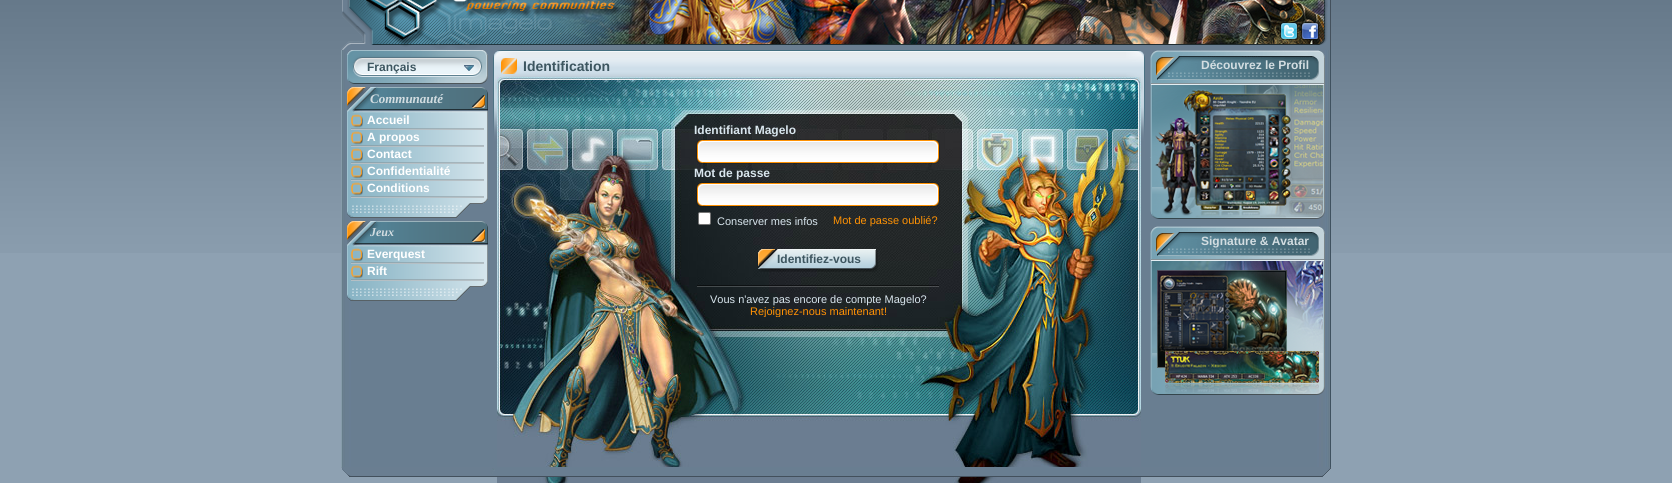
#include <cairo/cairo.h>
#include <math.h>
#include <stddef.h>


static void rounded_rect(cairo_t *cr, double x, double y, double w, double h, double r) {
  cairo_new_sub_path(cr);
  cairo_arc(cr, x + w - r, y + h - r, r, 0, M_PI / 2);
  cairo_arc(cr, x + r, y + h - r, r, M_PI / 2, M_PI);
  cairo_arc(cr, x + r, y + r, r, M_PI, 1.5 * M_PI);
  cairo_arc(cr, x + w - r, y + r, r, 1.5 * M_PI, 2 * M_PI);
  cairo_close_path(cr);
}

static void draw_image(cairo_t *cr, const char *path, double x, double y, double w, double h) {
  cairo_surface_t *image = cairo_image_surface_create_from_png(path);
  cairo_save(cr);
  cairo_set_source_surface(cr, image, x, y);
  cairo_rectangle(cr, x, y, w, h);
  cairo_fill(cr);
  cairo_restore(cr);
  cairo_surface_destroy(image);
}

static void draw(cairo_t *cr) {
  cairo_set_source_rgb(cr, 142 / 255.0, 161 / 255.0, 178 / 255.0);
  cairo_paint(cr);
  draw_image(cr, "images/1.png", 0, 0, 1672, 253);
  draw_image(cr, "images/2.png", 341, 0, 990, 50);
  draw_image(cr, "images/3.png", 347, 0, 981, 45);
  draw_image(cr, "images/4.png", 366, 0, 254, 49);
  draw_image(cr, "images/5.png", 1280, 22, 18, 18);
  draw_image(cr, "images/6.png", 1301, 22, 18, 18);
  draw_image(cr, "images/7.png", 341, 50, 990, 417);
  draw_image(cr, "images/8.png", 347, 50, 141, 34);
  draw_image(cr, "images/9.png", 347, 87, 141, 26);
  draw_image(cr, "images/10.png", 347, 113, 141, 85);
  draw_image(cr, "images/11.png", 351, 114, 133, 16);
  draw_image(cr, "images/11.png", 351, 131, 133, 16);
  draw_image(cr, "images/11.png", 351, 148, 133, 16);
  draw_image(cr, "images/11.png", 351, 165, 133, 16);
  draw_image(cr, "images/11.png", 351, 182, 133, 16);
  draw_image(cr, "images/12.png", 347, 198, 141, 20);
  draw_image(cr, "images/9.png", 347, 221, 141, 26);
  draw_image(cr, "images/13.png", 347, 247, 141, 34);
  draw_image(cr, "images/11.png", 351, 248, 133, 16);
  draw_image(cr, "images/11.png", 351, 265, 133, 16);
  draw_image(cr, "images/12.png", 347, 281, 141, 20);
  draw_image(cr, "images/14.png", 493, 50, 633, 111);
  draw_image(cr, "images/15.png", 1126, 50, 19, 111);
  draw_image(cr, "images/16.png", 501, 58, 16, 16);
  draw_image(cr, "images/17.png", 497, 77, 644, 406);
  draw_image(cr, "images/18.png", 696, 139, 244, 25);
  draw_image(cr, "images/19.png", 696, 182, 244, 25);
  cairo_set_source_rgb(cr, 1, 1, 1);
  rounded_rect(cr, 698.5, 212.5, 12, 12, 1.5);
  cairo_fill_preserve(cr);
  cairo_set_source_rgb(cr, 118 / 255.0, 118 / 255.0, 118 / 255.0);
  cairo_set_line_width(cr, 1);
  cairo_stroke(cr);
  draw_image(cr, "images/20.png", 869, 249, 9, 23);
  draw_image(cr, "images/21.png", 757, 249, 112, 23);
  draw_image(cr, "images/22.png", 697, 285, 242, 2);
  draw_image(cr, "images/23.png", 1150, 50, 175, 35);
  draw_image(cr, "images/24.png", 1156, 57, 19, 19);
  draw_image(cr, "images/25.png", 1150, 85, 175, 134);
  draw_image(cr, "images/23.png", 1150, 226, 175, 35);
  draw_image(cr, "images/24.png", 1156, 233, 19, 19);
  draw_image(cr, "images/26.png", 1150, 261, 175, 134);
  draw_image(cr, "images/27.png", 341, 467, 990, 10);
  cairo_select_font_face(cr, "Liberation Sans", CAIRO_FONT_SLANT_NORMAL, CAIRO_FONT_WEIGHT_BOLD);
  cairo_set_font_size(cr, 12);
  cairo_set_source_rgb(cr, 61 / 255.0, 86 / 255.0, 96 / 255.0);
  cairo_move_to(cr, 367, 71);
  cairo_show_text(cr, "Français");
  cairo_select_font_face(cr, "Liberation Serif", CAIRO_FONT_SLANT_ITALIC, CAIRO_FONT_WEIGHT_BOLD);
  cairo_set_font_size(cr, 13);
  cairo_set_source_rgb(cr, 211 / 255.0, 221 / 255.0, 225 / 255.0);
  cairo_move_to(cr, 370, 103);
  cairo_show_text(cr, "Communauté");
  cairo_select_font_face(cr, "Liberation Sans", CAIRO_FONT_SLANT_NORMAL, CAIRO_FONT_WEIGHT_BOLD);
  cairo_set_font_size(cr, 12);
  cairo_set_source_rgb(cr, 1, 1, 1);
  cairo_move_to(cr, 367, 124);
  cairo_show_text(cr, "Accueil");
  cairo_move_to(cr, 367, 141);
  cairo_show_text(cr, "A propos");
  cairo_move_to(cr, 367, 158);
  cairo_show_text(cr, "Contact");
  cairo_move_to(cr, 367, 175);
  cairo_show_text(cr, "Confidentialité");
  cairo_move_to(cr, 367, 192);
  cairo_show_text(cr, "Conditions");
  cairo_select_font_face(cr, "Liberation Serif", CAIRO_FONT_SLANT_ITALIC, CAIRO_FONT_WEIGHT_BOLD);
  cairo_set_source_rgb(cr, 211 / 255.0, 221 / 255.0, 225 / 255.0);
  cairo_move_to(cr, 370, 236);
  cairo_show_text(cr, "Jeux");
  cairo_select_font_face(cr, "Liberation Sans", CAIRO_FONT_SLANT_NORMAL, CAIRO_FONT_WEIGHT_BOLD);
  cairo_set_source_rgb(cr, 1, 1, 1);
  cairo_move_to(cr, 367, 258);
  cairo_show_text(cr, "Everquest");
  cairo_move_to(cr, 367, 275);
  cairo_show_text(cr, "Rift");
  cairo_set_font_size(cr, 14);
  cairo_set_source_rgb(cr, 61 / 255.0, 86 / 255.0, 96 / 255.0);
  cairo_move_to(cr, 523, 71);
  cairo_show_text(cr, "Identification");
  cairo_set_font_size(cr, 12);
  cairo_set_source_rgb(cr, 217 / 255.0, 230 / 255.0, 238 / 255.0);
  cairo_move_to(cr, 694, 134);
  cairo_show_text(cr, "Identifiant Magelo");
  cairo_move_to(cr, 694, 177);
  cairo_show_text(cr, "Mot de passe");
  cairo_select_font_face(cr, "Liberation Sans", CAIRO_FONT_SLANT_NORMAL, CAIRO_FONT_WEIGHT_NORMAL);
  cairo_set_font_size(cr, 11);
  cairo_move_to(cr, 717, 225);
  cairo_show_text(cr, "Conserver mes infos");
  cairo_set_source_rgb(cr, 1, 146 / 255.0, 4 / 255.0);
  cairo_move_to(cr, 833, 224);
  cairo_show_text(cr, "Mot de passe oublié?");
  cairo_select_font_face(cr, "Liberation Sans", CAIRO_FONT_SLANT_NORMAL, CAIRO_FONT_WEIGHT_BOLD);
  cairo_set_font_size(cr, 12);
  cairo_set_source_rgb(cr, 61 / 255.0, 86 / 255.0, 96 / 255.0);
  cairo_move_to(cr, 777, 263);
  cairo_show_text(cr, "Identifiez-vous");
  cairo_select_font_face(cr, "Liberation Sans", CAIRO_FONT_SLANT_NORMAL, CAIRO_FONT_WEIGHT_NORMAL);
  cairo_set_font_size(cr, 11);
  cairo_set_source_rgb(cr, 217 / 255.0, 230 / 255.0, 238 / 255.0);
  cairo_move_to(cr, 710, 303);
  cairo_show_text(cr, "Vous n'avez pas encore de compte Magelo?");
  cairo_save(cr);
  cairo_rectangle(cr, 694, 123, 248, 194);
  cairo_clip(cr);
  cairo_set_source_rgb(cr, 1, 146 / 255.0, 4 / 255.0);
  cairo_move_to(cr, 750, 315);
  cairo_show_text(cr, "Rejoignez-nous maintenant!");
  cairo_restore(cr);
  cairo_select_font_face(cr, "Liberation Sans", CAIRO_FONT_SLANT_NORMAL, CAIRO_FONT_WEIGHT_BOLD);
  cairo_set_font_size(cr, 12);
  cairo_set_source_rgb(cr, 211 / 255.0, 221 / 255.0, 225 / 255.0);
  cairo_move_to(cr, 1201, 69);
  cairo_show_text(cr, "Découvrez le Profil");
  cairo_move_to(cr, 1201, 245);
  cairo_show_text(cr, "Signature & Avatar");
}

int main(void) {
  cairo_surface_t *surface = cairo_image_surface_create(CAIRO_FORMAT_RGB24, 1672, 483);
  cairo_t *cr = cairo_create(surface);
  cairo_font_options_t *options = cairo_font_options_create();
  cairo_font_options_set_hint_metrics(options, CAIRO_HINT_METRICS_OFF);
  cairo_font_options_set_hint_style(options, CAIRO_HINT_STYLE_NONE);
  cairo_set_font_options(cr, options);
  cairo_set_miter_limit(cr, 4);
  draw(cr);
  cairo_surface_write_to_png(surface, "out.png");
  cairo_font_options_destroy(options);
  cairo_destroy(cr);
  cairo_surface_destroy(surface);
  return 0;
}
